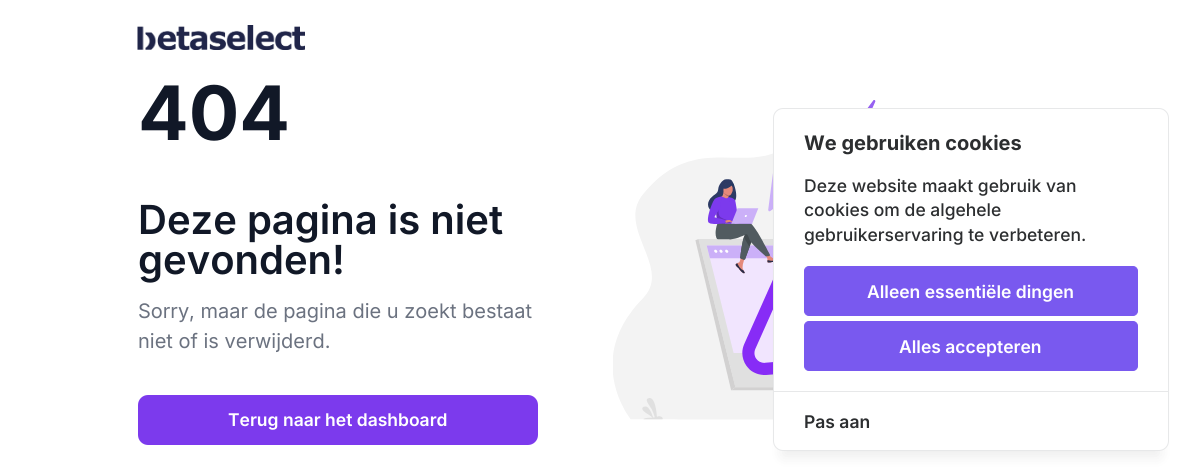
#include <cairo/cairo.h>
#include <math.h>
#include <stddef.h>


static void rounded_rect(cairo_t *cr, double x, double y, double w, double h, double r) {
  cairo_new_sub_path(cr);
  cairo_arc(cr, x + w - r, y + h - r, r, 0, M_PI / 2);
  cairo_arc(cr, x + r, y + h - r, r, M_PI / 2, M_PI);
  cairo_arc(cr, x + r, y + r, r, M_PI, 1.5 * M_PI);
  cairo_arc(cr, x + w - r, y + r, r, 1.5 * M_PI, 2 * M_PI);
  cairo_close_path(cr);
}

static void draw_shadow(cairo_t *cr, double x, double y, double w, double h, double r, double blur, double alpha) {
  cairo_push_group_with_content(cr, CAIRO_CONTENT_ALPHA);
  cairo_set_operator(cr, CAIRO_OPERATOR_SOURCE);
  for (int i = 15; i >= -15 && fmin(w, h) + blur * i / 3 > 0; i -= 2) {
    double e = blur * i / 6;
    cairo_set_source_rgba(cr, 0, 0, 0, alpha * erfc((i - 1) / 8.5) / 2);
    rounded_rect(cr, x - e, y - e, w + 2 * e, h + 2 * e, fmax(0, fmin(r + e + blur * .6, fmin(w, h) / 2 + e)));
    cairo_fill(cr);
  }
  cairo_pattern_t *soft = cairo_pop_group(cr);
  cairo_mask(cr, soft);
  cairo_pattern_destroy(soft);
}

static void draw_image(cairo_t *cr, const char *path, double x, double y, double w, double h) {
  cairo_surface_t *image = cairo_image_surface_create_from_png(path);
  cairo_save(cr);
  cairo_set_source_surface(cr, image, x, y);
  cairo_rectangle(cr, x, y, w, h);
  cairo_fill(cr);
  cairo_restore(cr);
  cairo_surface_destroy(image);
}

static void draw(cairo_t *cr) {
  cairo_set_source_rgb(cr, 1, 1, 1);
  cairo_paint(cr);
  draw_image(cr, "images/1.png", 137, 25, 168, 25);
  cairo_set_source_rgb(cr, 124 / 255.0, 58 / 255.0, 237 / 255.0);
  rounded_rect(cr, 138, 395, 400, 50, 10);
  cairo_fill(cr);
  draw_image(cr, "images/2.png", 613, 100, 263, 320);
  cairo_set_source_rgb(cr, 0, 0, 0);
  draw_shadow(cr, 783, 133, 376, 323, 0, 7.5, 0.08);
  cairo_set_source_rgb(cr, 1, 1, 1);
  rounded_rect(cr, 773.5, 108.5, 395, 342, 9.5);
  cairo_fill_preserve(cr);
  cairo_set_source_rgb(cr, 231 / 255.0, 232 / 255.0, 233 / 255.0);
  cairo_set_line_width(cr, 1);
  cairo_stroke(cr);
  cairo_set_source_rgb(cr, 121 / 255.0, 89 / 255.0, 239 / 255.0);
  rounded_rect(cr, 804.5, 266.5, 333, 49, 4.5);
  cairo_fill_preserve(cr);
  cairo_stroke(cr);
  rounded_rect(cr, 804.5, 321.5, 333, 49, 4.5);
  cairo_fill_preserve(cr);
  cairo_stroke(cr);
  cairo_set_source_rgb(cr, 231 / 255.0, 232 / 255.0, 233 / 255.0);
  cairo_rectangle(cr, 774, 391, 394, 1);
  cairo_fill(cr);
  cairo_select_font_face(cr, "Inter", CAIRO_FONT_SLANT_NORMAL, CAIRO_FONT_WEIGHT_BOLD);
  cairo_set_font_size(cr, 75);
  cairo_set_source_rgb(cr, 17 / 255.0, 24 / 255.0, 39 / 255.0);
  cairo_move_to(cr, 138, 140);
  cairo_show_text(cr, "404");
  cairo_select_font_face(cr, "Inter SemiBold", CAIRO_FONT_SLANT_NORMAL, CAIRO_FONT_WEIGHT_NORMAL);
  cairo_set_font_size(cr, 40);
  cairo_move_to(cr, 138, 234);
  cairo_show_text(cr, "Deze pagina is niet");
  cairo_move_to(cr, 138, 274);
  cairo_show_text(cr, "gevonden!");
  cairo_select_font_face(cr, "Inter", CAIRO_FONT_SLANT_NORMAL, CAIRO_FONT_WEIGHT_NORMAL);
  cairo_set_font_size(cr, 20);
  cairo_set_source_rgb(cr, 107 / 255.0, 114 / 255.0, 128 / 255.0);
  cairo_move_to(cr, 138, 318);
  cairo_show_text(cr, "Sorry, maar de pagina die u zoekt bestaat");
  cairo_move_to(cr, 138, 348);
  cairo_show_text(cr, "niet of is verwijderd.");
  cairo_select_font_face(cr, "Inter SemiBold", CAIRO_FONT_SLANT_NORMAL, CAIRO_FONT_WEIGHT_NORMAL);
  cairo_set_font_size(cr, 17.5);
  cairo_set_source_rgb(cr, 1, 1, 1);
  cairo_move_to(cr, 228, 426);
  cairo_show_text(cr, "Terug naar het dashboard");
  cairo_select_font_face(cr, "Inter", CAIRO_FONT_SLANT_NORMAL, CAIRO_FONT_WEIGHT_BOLD);
  cairo_set_font_size(cr, 20);
  cairo_set_source_rgb(cr, 44 / 255.0, 46 / 255.0, 48 / 255.0);
  cairo_move_to(cr, 804, 150);
  cairo_show_text(cr, "We gebruiken cookies");
  cairo_select_font_face(cr, "Inter Medium", CAIRO_FONT_SLANT_NORMAL, CAIRO_FONT_WEIGHT_NORMAL);
  cairo_set_font_size(cr, 17.5);
  cairo_move_to(cr, 804, 192);
  cairo_show_text(cr, "Deze website maakt gebruik van");
  cairo_move_to(cr, 804, 216);
  cairo_show_text(cr, "cookies om de algehele");
  cairo_move_to(cr, 804, 241);
  cairo_show_text(cr, "gebruikerservaring te verbeteren.");
  cairo_select_font_face(cr, "Inter SemiBold", CAIRO_FONT_SLANT_NORMAL, CAIRO_FONT_WEIGHT_NORMAL);
  cairo_set_source_rgb(cr, 1, 1, 1);
  cairo_move_to(cr, 867, 298);
  cairo_show_text(cr, "Alleen essentiële dingen");
  cairo_move_to(cr, 899, 353);
  cairo_show_text(cr, "Alles accepteren");
  cairo_set_source_rgb(cr, 44 / 255.0, 46 / 255.0, 48 / 255.0);
  cairo_move_to(cr, 804, 428);
  cairo_show_text(cr, "Pas aan");
}

int main(void) {
  cairo_surface_t *surface = cairo_image_surface_create(CAIRO_FORMAT_RGB24, 1194, 468);
  cairo_t *cr = cairo_create(surface);
  cairo_font_options_t *options = cairo_font_options_create();
  cairo_font_options_set_hint_metrics(options, CAIRO_HINT_METRICS_OFF);
  cairo_font_options_set_hint_style(options, CAIRO_HINT_STYLE_NONE);
  cairo_set_font_options(cr, options);
  cairo_set_miter_limit(cr, 4);
  draw(cr);
  cairo_surface_write_to_png(surface, "out.png");
  cairo_font_options_destroy(options);
  cairo_destroy(cr);
  cairo_surface_destroy(surface);
  return 0;
}
